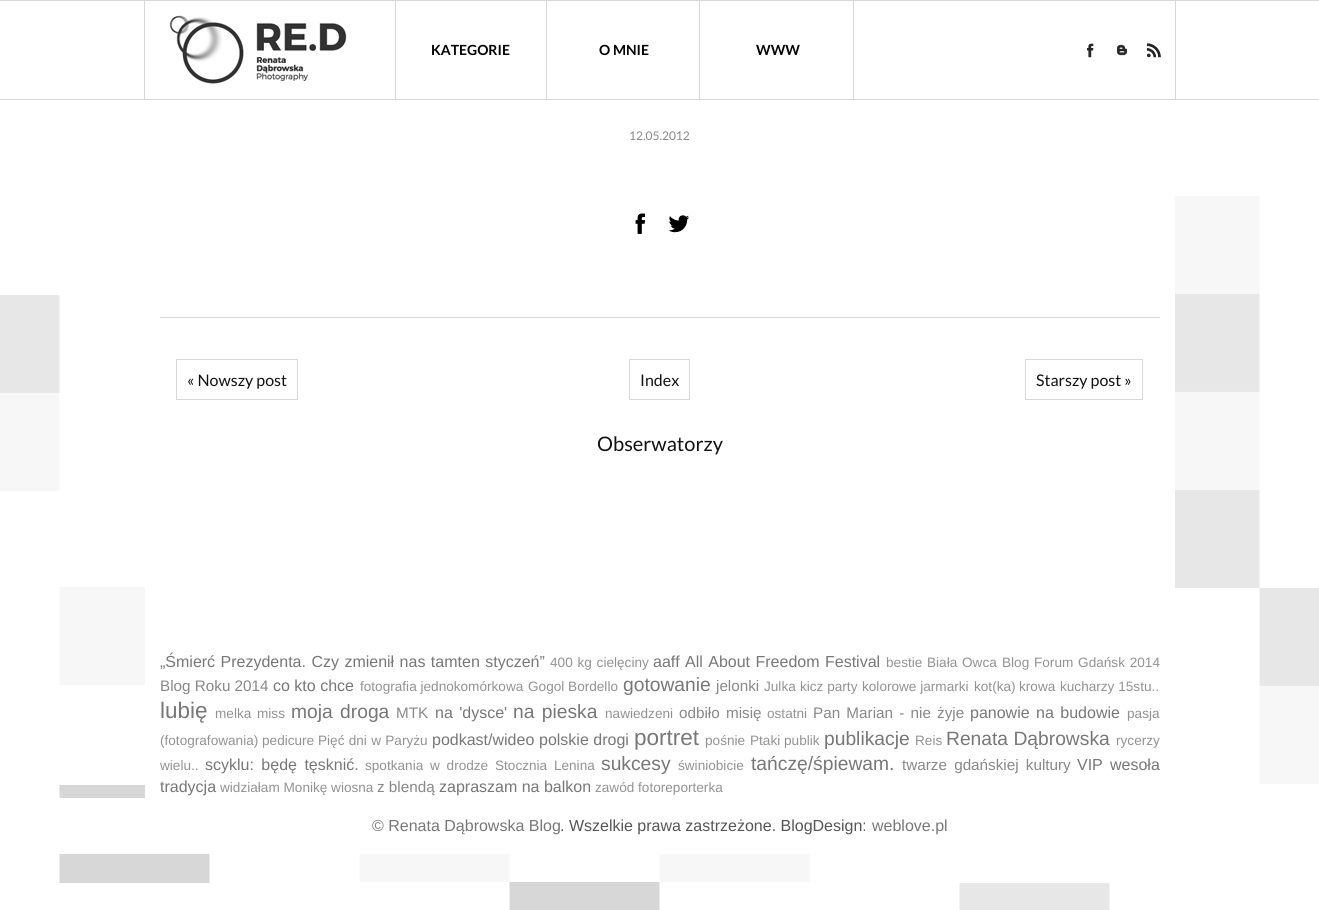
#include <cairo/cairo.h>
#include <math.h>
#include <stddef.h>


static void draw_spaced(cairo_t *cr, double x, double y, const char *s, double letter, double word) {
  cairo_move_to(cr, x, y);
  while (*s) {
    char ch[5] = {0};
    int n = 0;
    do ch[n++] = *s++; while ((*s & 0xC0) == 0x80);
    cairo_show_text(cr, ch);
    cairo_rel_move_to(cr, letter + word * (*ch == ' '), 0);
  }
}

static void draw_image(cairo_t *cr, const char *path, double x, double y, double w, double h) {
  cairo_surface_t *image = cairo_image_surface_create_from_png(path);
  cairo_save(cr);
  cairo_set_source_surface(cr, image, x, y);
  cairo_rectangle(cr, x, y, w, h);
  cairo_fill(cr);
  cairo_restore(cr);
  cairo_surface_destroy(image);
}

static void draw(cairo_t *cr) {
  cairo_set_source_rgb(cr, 1, 1, 1);
  cairo_paint(cr);
  draw_image(cr, "images/1.png", 0, 196, 1319, 714);
  cairo_set_source_rgb(cr, 215 / 255.0, 215 / 255.0, 215 / 255.0);
  cairo_rectangle(cr, 0, 0, 1319, 1);
  cairo_fill(cr);
  cairo_rectangle(cr, 0, 99, 1319, 1);
  cairo_fill(cr);
  cairo_rectangle(cr, 1175, 1, 1, 98);
  cairo_fill(cr);
  cairo_rectangle(cr, 144, 1, 1, 98);
  cairo_fill(cr);
  draw_image(cr, "images/2.png", 169, 15, 178, 69);
  cairo_rectangle(cr, 546, 1, 1, 98);
  cairo_fill(cr);
  cairo_rectangle(cr, 395, 1, 1, 98);
  cairo_fill(cr);
  cairo_rectangle(cr, 699, 1, 1, 98);
  cairo_fill(cr);
  cairo_rectangle(cr, 853, 1, 1, 98);
  cairo_fill(cr);
  draw_image(cr, "images/3.png", 1087, 43, 7, 15);
  draw_image(cr, "images/4.png", 1116, 44, 12, 12);
  draw_image(cr, "images/5.png", 1146, 43, 15, 15);
  cairo_set_source_rgb(cr, 1, 1, 1);
  cairo_rectangle(cr, 145, 196, 1030, 602);
  cairo_fill(cr);
  cairo_set_source_rgb(cr, 215 / 255.0, 215 / 255.0, 215 / 255.0);
  cairo_rectangle(cr, 160, 317, 1000, 1);
  cairo_fill(cr);
  draw_image(cr, "images/6.png", 635, 213, 10, 21);
  draw_image(cr, "images/7.png", 668, 215, 21, 18);
  cairo_rectangle(cr, 176.5, 359.5, 121, 40);
  cairo_set_line_width(cr, 1);
  cairo_stroke(cr);
  cairo_rectangle(cr, 629.5, 359.5, 60, 40);
  cairo_stroke(cr);
  cairo_rectangle(cr, 1025.5, 359.5, 117, 40);
  cairo_stroke(cr);
  cairo_set_source_rgb(cr, 1, 1, 1);
  cairo_rectangle(cr, 59, 798, 751, 56);
  cairo_fill(cr);
  cairo_select_font_face(cr, "Lato", CAIRO_FONT_SLANT_NORMAL, CAIRO_FONT_WEIGHT_BOLD);
  cairo_set_font_size(cr, 14);
  cairo_set_source_rgb(cr, 0, 0, 0);
  cairo_move_to(cr, 431, 55);
  cairo_show_text(cr, "KATEGORIE");
  cairo_move_to(cr, 599, 55);
  cairo_show_text(cr, "O MNIE");
  cairo_move_to(cr, 756, 55);
  cairo_show_text(cr, "WWW");
  cairo_select_font_face(cr, "Lato", CAIRO_FONT_SLANT_NORMAL, CAIRO_FONT_WEIGHT_NORMAL);
  cairo_set_font_size(cr, 12);
  cairo_set_source_rgb(cr, 136 / 255.0, 136 / 255.0, 136 / 255.0);
  cairo_move_to(cr, 629, 140);
  cairo_show_text(cr, "12.05.2012");
  cairo_set_font_size(cr, 16);
  cairo_set_source_rgb(cr, 17 / 255.0, 17 / 255.0, 17 / 255.0);
  cairo_move_to(cr, 187, 386);
  cairo_show_text(cr, "« Nowszy post");
  cairo_move_to(cr, 640, 386);
  cairo_show_text(cr, "Index");
  cairo_move_to(cr, 1036, 386);
  cairo_show_text(cr, "Starszy post »");
  cairo_set_font_size(cr, 20);
  cairo_move_to(cr, 597, 451);
  cairo_show_text(cr, "Obserwatorzy");
  cairo_select_font_face(cr, "Liberation Sans", CAIRO_FONT_SLANT_NORMAL, CAIRO_FONT_WEIGHT_NORMAL);
  cairo_set_font_size(cr, 16);
  cairo_set_source_rgb(cr, 119 / 255.0, 119 / 255.0, 119 / 255.0);
  draw_spaced(cr, 160, 667, "„Śmierć Prezydenta. Czy zmienił nas tamten styczeń”", 0, 1);
  cairo_set_font_size(cr, 13.6);
  cairo_set_source_rgb(cr, 146 / 255.0, 146 / 255.0, 146 / 255.0);
  draw_spaced(cr, 550, 667, "400 kg cielęciny", 0, 1);
  cairo_set_font_size(cr, 16);
  cairo_set_source_rgb(cr, 119 / 255.0, 119 / 255.0, 119 / 255.0);
  cairo_move_to(cr, 653, 667);
  cairo_show_text(cr, "aaff");
  draw_spaced(cr, 685, 667, "All About Freedom Festival", 0, 1);
  cairo_set_font_size(cr, 13.6);
  cairo_set_source_rgb(cr, 146 / 255.0, 146 / 255.0, 146 / 255.0);
  cairo_move_to(cr, 886, 667);
  cairo_show_text(cr, "bestie");
  draw_spaced(cr, 927, 667, "Biała Owca", 0, 1);
  draw_spaced(cr, 1002, 667, "Blog Forum Gdańsk 2014", 0, 1);
  cairo_set_font_size(cr, 15.25);
  cairo_set_source_rgb(cr, 136 / 255.0, 136 / 255.0, 136 / 255.0);
  cairo_move_to(cr, 160, 691);
  cairo_show_text(cr, "Blog Roku 2014");
  cairo_set_font_size(cr, 16);
  cairo_set_source_rgb(cr, 119 / 255.0, 119 / 255.0, 119 / 255.0);
  cairo_move_to(cr, 273, 691);
  cairo_show_text(cr, "co kto chce");
  cairo_set_font_size(cr, 13.6);
  cairo_set_source_rgb(cr, 146 / 255.0, 146 / 255.0, 146 / 255.0);
  cairo_move_to(cr, 360, 691);
  cairo_show_text(cr, "fotografia jednokomórkowa");
  cairo_move_to(cr, 528, 691);
  cairo_show_text(cr, "Gogol Bordello");
  cairo_set_font_size(cr, 19.25);
  cairo_set_source_rgb(cr, 119 / 255.0, 119 / 255.0, 119 / 255.0);
  cairo_move_to(cr, 623, 691);
  cairo_show_text(cr, "gotowanie");
  cairo_set_font_size(cr, 15.25);
  cairo_set_source_rgb(cr, 136 / 255.0, 136 / 255.0, 136 / 255.0);
  cairo_move_to(cr, 716, 691);
  cairo_show_text(cr, "jelonki");
  cairo_set_font_size(cr, 13.6);
  cairo_set_source_rgb(cr, 146 / 255.0, 146 / 255.0, 146 / 255.0);
  cairo_move_to(cr, 764, 691);
  cairo_show_text(cr, "Julka");
  cairo_move_to(cr, 800, 691);
  cairo_show_text(cr, "kicz party");
  cairo_move_to(cr, 862, 691);
  cairo_show_text(cr, "kolorowe jarmarki");
  cairo_move_to(cr, 974, 691);
  cairo_show_text(cr, "kot(ka)");
  cairo_move_to(cr, 1019, 691);
  cairo_show_text(cr, "krowa");
  cairo_move_to(cr, 1060, 691);
  cairo_show_text(cr, "kucharzy 15stu..");
  cairo_set_font_size(cr, 22.5);
  cairo_set_source_rgb(cr, 119 / 255.0, 119 / 255.0, 119 / 255.0);
  cairo_move_to(cr, 160, 718);
  cairo_show_text(cr, "lubię");
  cairo_set_font_size(cr, 13.6);
  cairo_set_source_rgb(cr, 146 / 255.0, 146 / 255.0, 146 / 255.0);
  cairo_move_to(cr, 215, 718);
  cairo_show_text(cr, "melka");
  cairo_move_to(cr, 257, 718);
  cairo_show_text(cr, "miss");
  cairo_set_font_size(cr, 19.25);
  cairo_set_source_rgb(cr, 119 / 255.0, 119 / 255.0, 119 / 255.0);
  draw_spaced(cr, 291, 718, "moja droga", 0, 2);
  cairo_set_font_size(cr, 15.25);
  cairo_set_source_rgb(cr, 136 / 255.0, 136 / 255.0, 136 / 255.0);
  cairo_move_to(cr, 396, 718);
  cairo_show_text(cr, "MTK");
  cairo_set_font_size(cr, 16);
  cairo_set_source_rgb(cr, 119 / 255.0, 119 / 255.0, 119 / 255.0);
  draw_spaced(cr, 435, 718, "na 'dysce'", 0, 2);
  cairo_set_font_size(cr, 19.25);
  draw_spaced(cr, 513, 718, "na pieska", 0, 2);
  cairo_set_font_size(cr, 13.6);
  cairo_set_source_rgb(cr, 146 / 255.0, 146 / 255.0, 146 / 255.0);
  cairo_move_to(cr, 605, 718);
  cairo_show_text(cr, "nawiedzeni");
  cairo_set_font_size(cr, 15.25);
  cairo_set_source_rgb(cr, 136 / 255.0, 136 / 255.0, 136 / 255.0);
  draw_spaced(cr, 679, 718, "odbiło misię", 0, 2);
  cairo_set_font_size(cr, 13.6);
  cairo_set_source_rgb(cr, 146 / 255.0, 146 / 255.0, 146 / 255.0);
  cairo_move_to(cr, 767, 718);
  cairo_show_text(cr, "ostatni");
  cairo_set_font_size(cr, 15.25);
  cairo_set_source_rgb(cr, 136 / 255.0, 136 / 255.0, 136 / 255.0);
  draw_spaced(cr, 813, 718, "Pan Marian - nie żyje", 0, 2);
  cairo_set_font_size(cr, 16);
  cairo_set_source_rgb(cr, 119 / 255.0, 119 / 255.0, 119 / 255.0);
  draw_spaced(cr, 970, 718, "panowie na budowie", 0, 2);
  cairo_set_font_size(cr, 13.6);
  cairo_set_source_rgb(cr, 146 / 255.0, 146 / 255.0, 146 / 255.0);
  cairo_move_to(cr, 1127, 718);
  cairo_show_text(cr, "pasja");
  cairo_move_to(cr, 160, 745);
  cairo_show_text(cr, "(fotografowania)");
  cairo_move_to(cr, 262, 745);
  cairo_show_text(cr, "pedicure");
  draw_spaced(cr, 318, 745, "Pięć dni w Paryżu", 0, 0.5);
  cairo_set_font_size(cr, 16);
  cairo_set_source_rgb(cr, 119 / 255.0, 119 / 255.0, 119 / 255.0);
  cairo_move_to(cr, 432, 745);
  cairo_show_text(cr, "podkast/wideo");
  cairo_move_to(cr, 539, 745);
  cairo_show_text(cr, "polskie drogi");
  cairo_set_font_size(cr, 22.5);
  cairo_move_to(cr, 634, 745);
  cairo_show_text(cr, "portret");
  cairo_set_font_size(cr, 13.6);
  cairo_set_source_rgb(cr, 146 / 255.0, 146 / 255.0, 146 / 255.0);
  cairo_move_to(cr, 705, 745);
  cairo_show_text(cr, "pośnie");
  cairo_move_to(cr, 750, 745);
  cairo_show_text(cr, "Ptaki");
  cairo_move_to(cr, 784, 745);
  cairo_show_text(cr, "publik");
  cairo_set_font_size(cr, 19.25);
  cairo_set_source_rgb(cr, 119 / 255.0, 119 / 255.0, 119 / 255.0);
  cairo_move_to(cr, 824, 745);
  cairo_show_text(cr, "publikacje");
  cairo_set_font_size(cr, 13.6);
  cairo_set_source_rgb(cr, 146 / 255.0, 146 / 255.0, 146 / 255.0);
  cairo_move_to(cr, 915, 745);
  cairo_show_text(cr, "Reis");
  cairo_set_font_size(cr, 19.25);
  cairo_set_source_rgb(cr, 119 / 255.0, 119 / 255.0, 119 / 255.0);
  cairo_move_to(cr, 946, 745);
  cairo_show_text(cr, "Renata Dąbrowska");
  cairo_set_font_size(cr, 13.6);
  cairo_set_source_rgb(cr, 146 / 255.0, 146 / 255.0, 146 / 255.0);
  cairo_move_to(cr, 1116, 745);
  cairo_show_text(cr, "rycerzy");
  cairo_move_to(cr, 160, 770);
  cairo_show_text(cr, "wielu..");
  cairo_set_font_size(cr, 16);
  cairo_set_source_rgb(cr, 119 / 255.0, 119 / 255.0, 119 / 255.0);
  draw_spaced(cr, 205, 770, "scyklu: będę tęsknić.", 0, 3);
  cairo_set_font_size(cr, 13.6);
  cairo_set_source_rgb(cr, 146 / 255.0, 146 / 255.0, 146 / 255.0);
  draw_spaced(cr, 365, 770, "spotkania w drodze", 0, 3);
  draw_spaced(cr, 495, 770, "Stocznia Lenina", 0, 3);
  cairo_set_font_size(cr, 19.25);
  cairo_set_source_rgb(cr, 119 / 255.0, 119 / 255.0, 119 / 255.0);
  cairo_move_to(cr, 601, 770);
  cairo_show_text(cr, "sukcesy");
  cairo_set_font_size(cr, 13.6);
  cairo_set_source_rgb(cr, 146 / 255.0, 146 / 255.0, 146 / 255.0);
  cairo_move_to(cr, 678, 770);
  cairo_show_text(cr, "świniobicie");
  cairo_set_font_size(cr, 19.25);
  cairo_set_source_rgb(cr, 119 / 255.0, 119 / 255.0, 119 / 255.0);
  cairo_move_to(cr, 751, 770);
  cairo_show_text(cr, "tańczę/śpiewam.");
  cairo_set_font_size(cr, 15.25);
  cairo_set_source_rgb(cr, 136 / 255.0, 136 / 255.0, 136 / 255.0);
  draw_spaced(cr, 902, 770, "twarze gdańskiej kultury", 0, 3);
  cairo_set_font_size(cr, 16);
  cairo_set_source_rgb(cr, 119 / 255.0, 119 / 255.0, 119 / 255.0);
  cairo_move_to(cr, 1077, 770);
  cairo_show_text(cr, "VIP");
  cairo_move_to(cr, 1110, 770);
  cairo_show_text(cr, "wesoła");
  cairo_move_to(cr, 160, 792);
  cairo_show_text(cr, "tradycja");
  cairo_set_font_size(cr, 13.6);
  cairo_set_source_rgb(cr, 146 / 255.0, 146 / 255.0, 146 / 255.0);
  cairo_move_to(cr, 220, 792);
  cairo_show_text(cr, "widziałam Monikę wiosna");
  cairo_set_font_size(cr, 15.25);
  cairo_set_source_rgb(cr, 136 / 255.0, 136 / 255.0, 136 / 255.0);
  cairo_move_to(cr, 377, 792);
  cairo_show_text(cr, "z blendą");
  cairo_set_font_size(cr, 16);
  cairo_set_source_rgb(cr, 119 / 255.0, 119 / 255.0, 119 / 255.0);
  cairo_move_to(cr, 439, 792);
  cairo_show_text(cr, "zapraszam na balkon");
  cairo_set_font_size(cr, 13.6);
  cairo_set_source_rgb(cr, 146 / 255.0, 146 / 255.0, 146 / 255.0);
  cairo_move_to(cr, 595, 792);
  cairo_show_text(cr, "zawód fotoreporterka");
  cairo_set_font_size(cr, 16);
  cairo_set_source_rgb(cr, 119 / 255.0, 119 / 255.0, 119 / 255.0);
  cairo_move_to(cr, 372, 831);
  cairo_show_text(cr, "© Renata Dąbrowska Blog");
  cairo_set_source_rgb(cr, 85 / 255.0, 85 / 255.0, 85 / 255.0);
  cairo_move_to(cr, 560, 831);
  cairo_show_text(cr, ". Wszelkie prawa zastrzeżone. BlogDesign:");
  cairo_set_source_rgb(cr, 119 / 255.0, 119 / 255.0, 119 / 255.0);
  cairo_move_to(cr, 872, 831);
  cairo_show_text(cr, "weblove.pl");
}

int main(void) {
  cairo_surface_t *surface = cairo_image_surface_create(CAIRO_FORMAT_RGB24, 1319, 910);
  cairo_t *cr = cairo_create(surface);
  cairo_font_options_t *options = cairo_font_options_create();
  cairo_font_options_set_hint_metrics(options, CAIRO_HINT_METRICS_OFF);
  cairo_font_options_set_hint_style(options, CAIRO_HINT_STYLE_NONE);
  cairo_set_font_options(cr, options);
  cairo_set_miter_limit(cr, 4);
  draw(cr);
  cairo_surface_write_to_png(surface, "out.png");
  cairo_font_options_destroy(options);
  cairo_destroy(cr);
  cairo_surface_destroy(surface);
  return 0;
}
